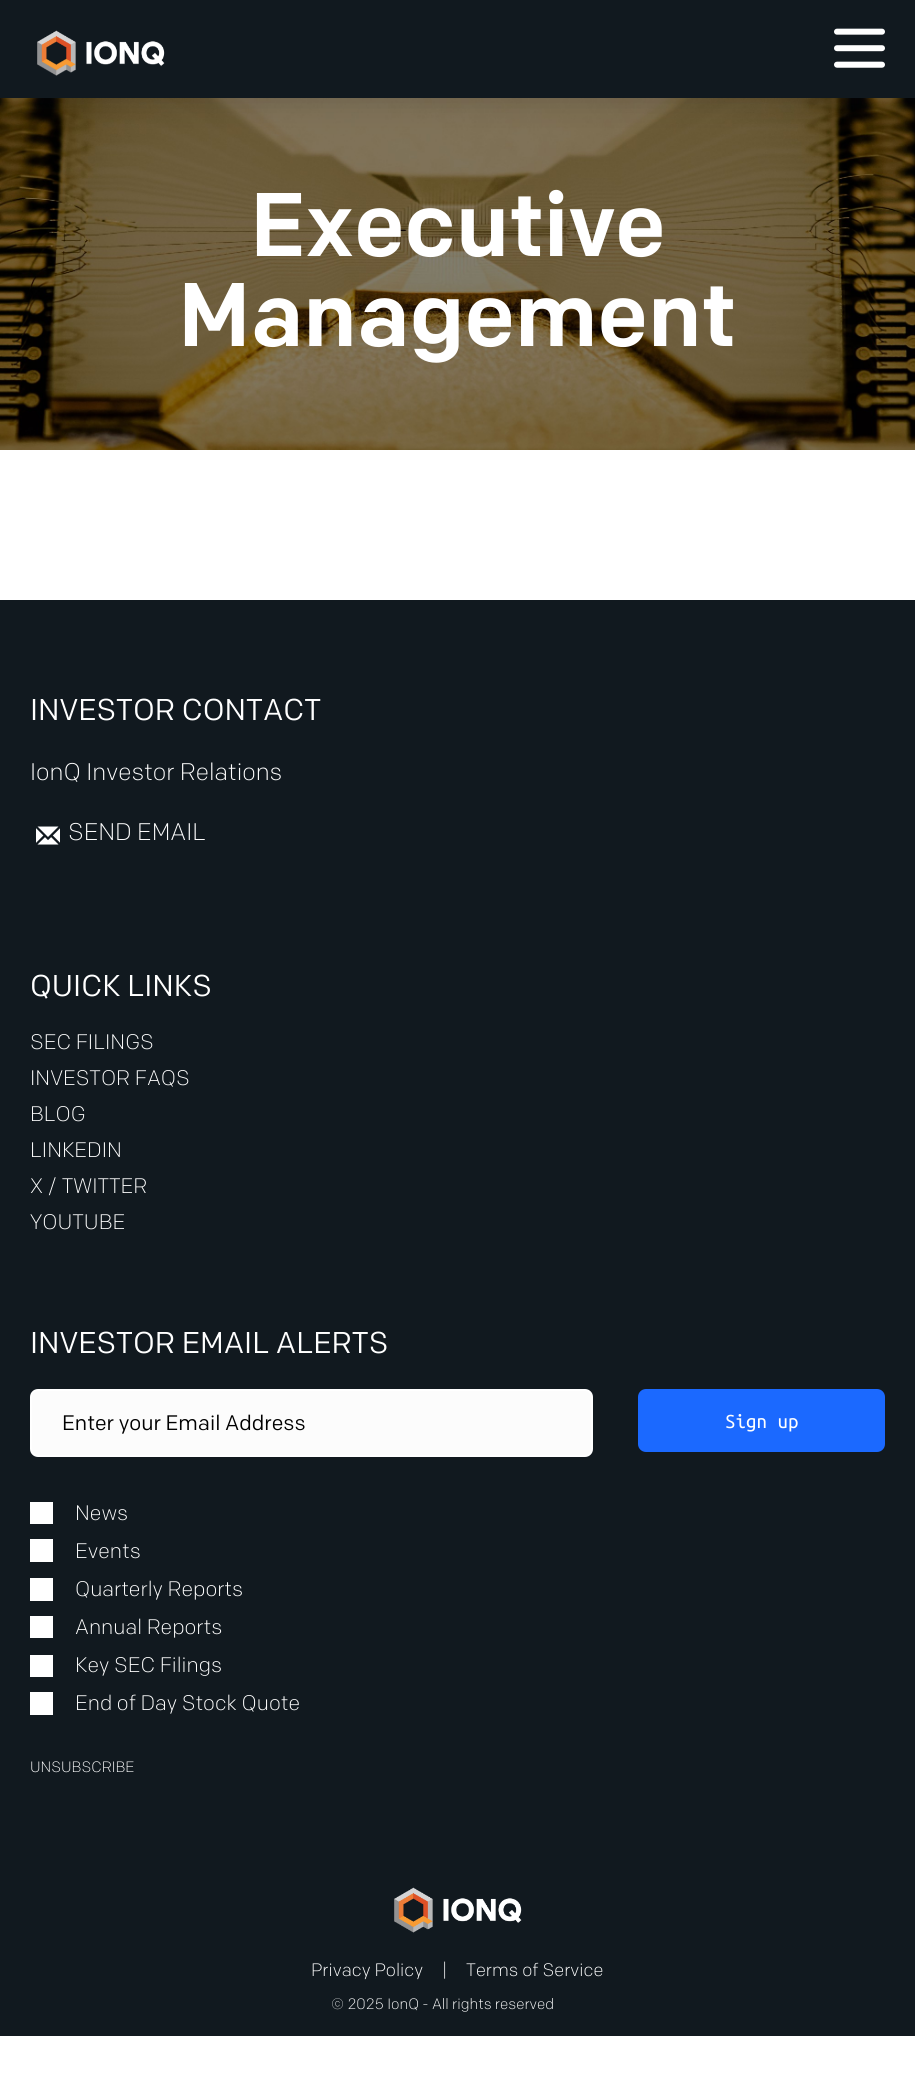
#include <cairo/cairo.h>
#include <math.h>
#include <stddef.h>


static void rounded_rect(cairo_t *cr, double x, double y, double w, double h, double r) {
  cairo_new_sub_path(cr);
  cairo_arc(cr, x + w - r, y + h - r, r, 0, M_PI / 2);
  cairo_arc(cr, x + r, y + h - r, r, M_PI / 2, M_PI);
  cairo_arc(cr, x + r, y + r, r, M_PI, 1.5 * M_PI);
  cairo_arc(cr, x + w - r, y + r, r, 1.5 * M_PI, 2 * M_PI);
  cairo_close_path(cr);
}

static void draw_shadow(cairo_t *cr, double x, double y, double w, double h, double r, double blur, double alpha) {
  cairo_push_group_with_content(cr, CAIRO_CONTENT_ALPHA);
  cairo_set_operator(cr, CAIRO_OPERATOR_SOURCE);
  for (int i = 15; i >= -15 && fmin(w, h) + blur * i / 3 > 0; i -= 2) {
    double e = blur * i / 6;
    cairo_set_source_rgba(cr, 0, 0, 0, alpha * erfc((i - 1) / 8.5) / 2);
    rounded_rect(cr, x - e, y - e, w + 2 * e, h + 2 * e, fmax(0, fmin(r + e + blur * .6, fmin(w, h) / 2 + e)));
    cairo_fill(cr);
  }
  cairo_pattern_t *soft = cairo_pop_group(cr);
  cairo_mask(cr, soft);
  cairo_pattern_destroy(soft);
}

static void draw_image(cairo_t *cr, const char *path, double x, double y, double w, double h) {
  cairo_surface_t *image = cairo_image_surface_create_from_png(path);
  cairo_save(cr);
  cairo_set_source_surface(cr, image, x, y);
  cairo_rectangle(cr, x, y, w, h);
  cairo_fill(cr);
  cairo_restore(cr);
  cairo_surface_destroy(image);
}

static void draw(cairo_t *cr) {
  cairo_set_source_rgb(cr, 1, 1, 1);
  cairo_paint(cr);
  draw_image(cr, "images/3.png", 0, 98, 915, 352);
  cairo_set_source_rgb(cr, 17 / 255.0, 25 / 255.0, 31 / 255.0);
  draw_shadow(cr, 0, 3, 915, 98, 0, 15, 0.2);
  cairo_set_source_rgb(cr, 17 / 255.0, 25 / 255.0, 31 / 255.0);
  cairo_rectangle(cr, 0, 0, 915, 98);
  cairo_fill(cr);
  draw_image(cr, "images/1.png", 37, 30, 128, 46);
  draw_image(cr, "images/2.png", 834, 28, 51, 40);
  cairo_rectangle(cr, 0, 600, 915, 1436);
  cairo_fill(cr);
  draw_image(cr, "images/4.png", 36, 826, 24, 19);
  cairo_set_source_rgb(cr, 252 / 255.0, 252 / 255.0, 252 / 255.0);
  rounded_rect(cr, 31, 1390, 561, 66, 7);
  cairo_fill_preserve(cr);
  cairo_set_source_rgb(cr, 1, 1, 1);
  cairo_stroke(cr);
  cairo_set_source_rgb(cr, 27 / 255.0, 105 / 255.0, 1);
  rounded_rect(cr, 639, 1390, 245, 61, 7);
  cairo_fill_preserve(cr);
  cairo_stroke(cr);
  cairo_set_source_rgb(cr, 1, 1, 1);
  cairo_rectangle(cr, 30, 1502, 23, 22);
  cairo_fill(cr);
  cairo_rectangle(cr, 30, 1539, 23, 23);
  cairo_fill(cr);
  cairo_rectangle(cr, 30, 1578, 23, 23);
  cairo_fill(cr);
  cairo_rectangle(cr, 30, 1616, 23, 22);
  cairo_fill(cr);
  cairo_rectangle(cr, 30, 1655, 23, 22);
  cairo_fill(cr);
  cairo_rectangle(cr, 30, 1692, 23, 23);
  cairo_fill(cr);
  draw_image(cr, "images/5.png", 394, 1887, 128, 46);
  cairo_select_font_face(cr, "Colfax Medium", CAIRO_FONT_SLANT_NORMAL, CAIRO_FONT_WEIGHT_NORMAL);
  cairo_set_font_size(cr, 90);
  cairo_move_to(cr, 250, 256);
  cairo_show_text(cr, "Executive");
  cairo_move_to(cr, 178, 346);
  cairo_show_text(cr, "Management");
  cairo_select_font_face(cr, "Colfax", CAIRO_FONT_SLANT_NORMAL, CAIRO_FONT_WEIGHT_NORMAL);
  cairo_set_font_size(cr, 30);
  cairo_move_to(cr, 30, 720);
  cairo_show_text(cr, "INVESTOR CONTACT");
  cairo_select_font_face(cr, "Colfax Light", CAIRO_FONT_SLANT_NORMAL, CAIRO_FONT_WEIGHT_NORMAL);
  cairo_set_font_size(cr, 24);
  cairo_move_to(cr, 30, 780);
  cairo_show_text(cr, "IonQ Investor Relations");
  cairo_move_to(cr, 68, 840);
  cairo_show_text(cr, "SEND EMAIL");
  cairo_select_font_face(cr, "Colfax", CAIRO_FONT_SLANT_NORMAL, CAIRO_FONT_WEIGHT_NORMAL);
  cairo_set_font_size(cr, 30);
  cairo_move_to(cr, 30, 996);
  cairo_show_text(cr, "QUICK LINKS");
  cairo_select_font_face(cr, "Colfax Light", CAIRO_FONT_SLANT_NORMAL, CAIRO_FONT_WEIGHT_NORMAL);
  cairo_set_font_size(cr, 21);
  cairo_move_to(cr, 30, 1049);
  cairo_show_text(cr, "SEC FILINGS");
  cairo_move_to(cr, 30, 1085);
  cairo_show_text(cr, "INVESTOR FAQS");
  cairo_move_to(cr, 30, 1121);
  cairo_show_text(cr, "BLOG");
  cairo_move_to(cr, 30, 1157);
  cairo_show_text(cr, "LINKEDIN");
  cairo_move_to(cr, 30, 1193);
  cairo_show_text(cr, "X / TWITTER");
  cairo_move_to(cr, 30, 1229);
  cairo_show_text(cr, "YOUTUBE");
  cairo_select_font_face(cr, "Colfax", CAIRO_FONT_SLANT_NORMAL, CAIRO_FONT_WEIGHT_NORMAL);
  cairo_set_font_size(cr, 30);
  cairo_move_to(cr, 30, 1353);
  cairo_show_text(cr, "INVESTOR EMAIL ALERTS");
  cairo_set_font_size(cr, 21);
  cairo_set_source_rgb(cr, 0, 0, 0);
  cairo_move_to(cr, 62, 1430);
  cairo_show_text(cr, "Enter your Email Address");
  cairo_select_font_face(cr, "Ubuntu Mono", CAIRO_FONT_SLANT_NORMAL, CAIRO_FONT_WEIGHT_NORMAL);
  cairo_set_source_rgb(cr, 1, 1, 1);
  cairo_move_to(cr, 725, 1428);
  cairo_show_text(cr, "Sign up");
  cairo_select_font_face(cr, "Colfax Light", CAIRO_FONT_SLANT_NORMAL, CAIRO_FONT_WEIGHT_NORMAL);
  cairo_move_to(cr, 75, 1520);
  cairo_show_text(cr, "News");
  cairo_move_to(cr, 75, 1558);
  cairo_show_text(cr, "Events");
  cairo_move_to(cr, 75, 1596);
  cairo_show_text(cr, "Quarterly Reports");
  cairo_move_to(cr, 75, 1634);
  cairo_show_text(cr, "Annual Reports");
  cairo_move_to(cr, 75, 1672);
  cairo_show_text(cr, "Key SEC Filings");
  cairo_move_to(cr, 75, 1710);
  cairo_show_text(cr, "End of Day Stock Quote");
  cairo_set_font_size(cr, 15);
  cairo_move_to(cr, 30, 1772);
  cairo_show_text(cr, "UNSUBSCRIBE");
  cairo_set_font_size(cr, 18);
  cairo_move_to(cr, 311, 1976);
  cairo_show_text(cr, "Privacy Policy");
  cairo_move_to(cr, 442, 1976);
  cairo_show_text(cr, "|");
  cairo_move_to(cr, 466, 1976);
  cairo_show_text(cr, "Terms of Service");
  cairo_set_font_size(cr, 15);
  cairo_move_to(cr, 331, 2009);
  cairo_show_text(cr, "© 2025 IonQ - All rights reserved");
}

int main(void) {
  cairo_surface_t *surface = cairo_image_surface_create(CAIRO_FORMAT_RGB24, 915, 2086);
  cairo_t *cr = cairo_create(surface);
  cairo_font_options_t *options = cairo_font_options_create();
  cairo_font_options_set_hint_metrics(options, CAIRO_HINT_METRICS_OFF);
  cairo_font_options_set_hint_style(options, CAIRO_HINT_STYLE_NONE);
  cairo_set_font_options(cr, options);
  cairo_set_miter_limit(cr, 4);
  draw(cr);
  cairo_surface_write_to_png(surface, "out.png");
  cairo_font_options_destroy(options);
  cairo_destroy(cr);
  cairo_surface_destroy(surface);
  return 0;
}
